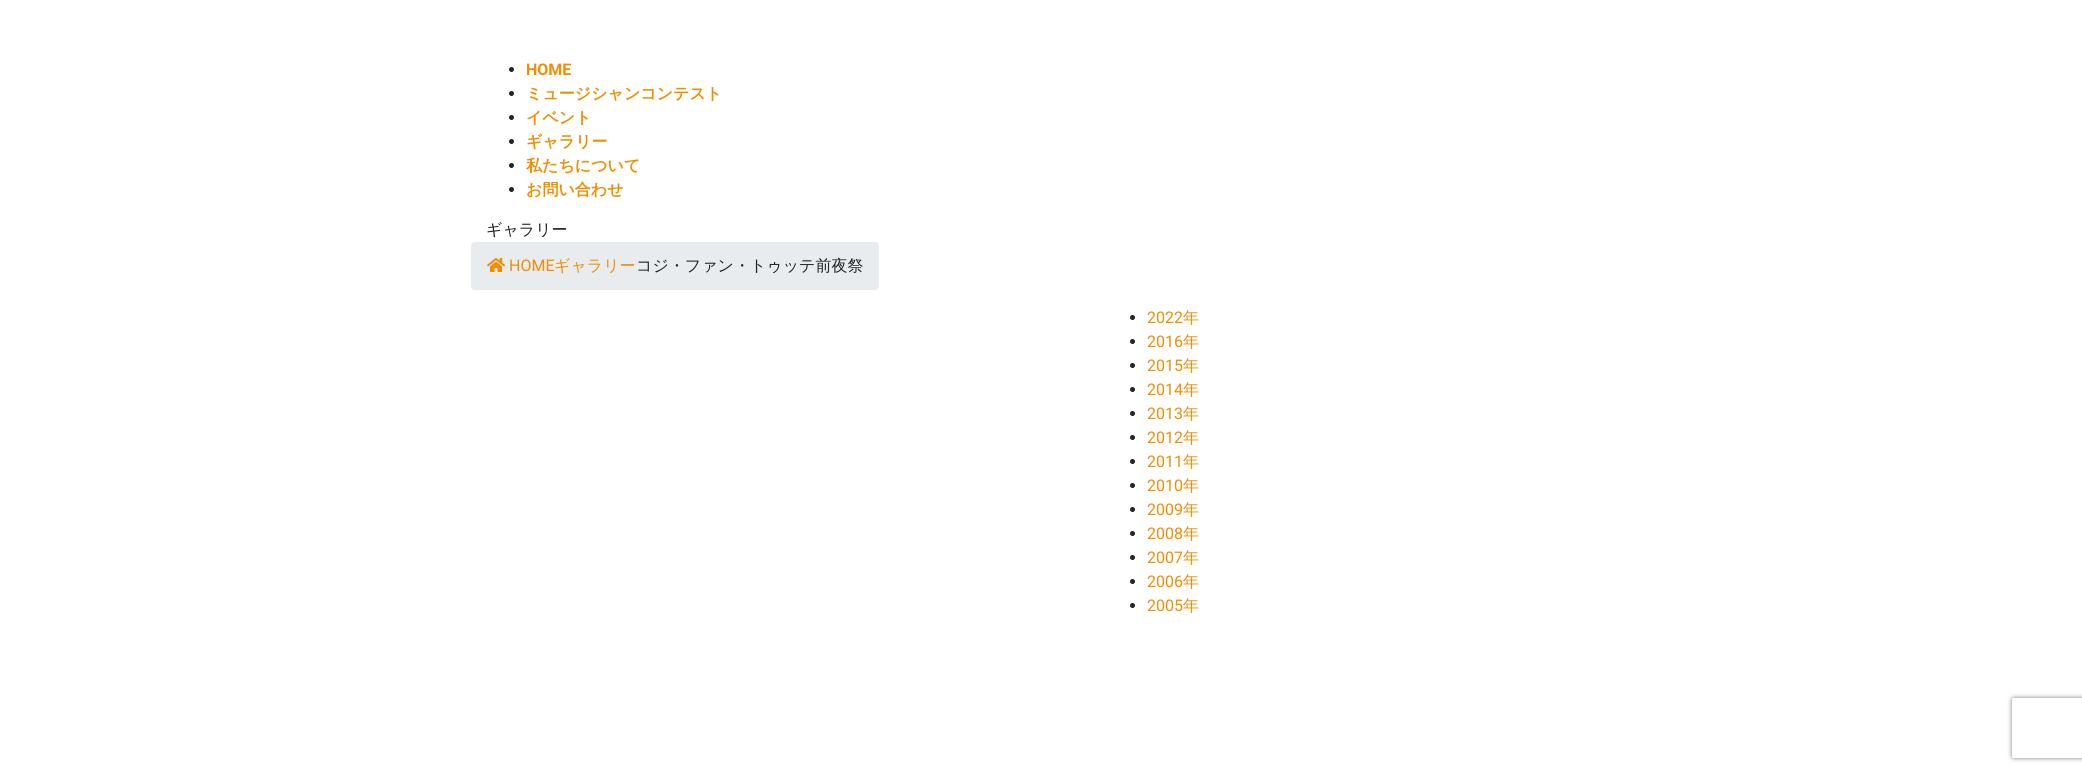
#include <cairo/cairo.h>
#include <math.h>
#include <stddef.h>


static void rounded_rect(cairo_t *cr, double x, double y, double w, double h, double r) {
  cairo_new_sub_path(cr);
  cairo_arc(cr, x + w - r, y + h - r, r, 0, M_PI / 2);
  cairo_arc(cr, x + r, y + h - r, r, M_PI / 2, M_PI);
  cairo_arc(cr, x + r, y + r, r, M_PI, 1.5 * M_PI);
  cairo_arc(cr, x + w - r, y + r, r, 1.5 * M_PI, 2 * M_PI);
  cairo_close_path(cr);
}

static void draw_shadow(cairo_t *cr, double x, double y, double w, double h, double r, double blur, double alpha) {
  cairo_push_group_with_content(cr, CAIRO_CONTENT_ALPHA);
  cairo_set_operator(cr, CAIRO_OPERATOR_SOURCE);
  for (int i = 15; i >= -15 && fmin(w, h) + blur * i / 3 > 0; i -= 2) {
    double e = blur * i / 6;
    cairo_set_source_rgba(cr, 0, 0, 0, alpha * erfc((i - 1) / 8.5) / 2);
    rounded_rect(cr, x - e, y - e, w + 2 * e, h + 2 * e, fmax(0, fmin(r + e + blur * .6, fmin(w, h) / 2 + e)));
    cairo_fill(cr);
  }
  cairo_pattern_t *soft = cairo_pop_group(cr);
  cairo_mask(cr, soft);
  cairo_pattern_destroy(soft);
}

static void draw_image(cairo_t *cr, const char *path, double x, double y, double w, double h) {
  cairo_surface_t *image = cairo_image_surface_create_from_png(path);
  cairo_save(cr);
  cairo_set_source_surface(cr, image, x, y);
  cairo_rectangle(cr, x, y, w, h);
  cairo_fill(cr);
  cairo_restore(cr);
  cairo_surface_destroy(image);
}

static void draw(cairo_t *cr) {
  cairo_set_source_rgb(cr, 1, 1, 1);
  cairo_paint(cr);
  cairo_set_source_rgb(cr, 33 / 255.0, 37 / 255.0, 41 / 255.0);
  cairo_arc(cr, 511.5, 69.5, 2.5, 0, 2 * M_PI);
  cairo_fill(cr);
  cairo_arc(cr, 511.5, 93.5, 2.5, 0, 2 * M_PI);
  cairo_fill(cr);
  cairo_arc(cr, 511.5, 117.5, 2.5, 0, 2 * M_PI);
  cairo_fill(cr);
  cairo_arc(cr, 511.5, 141.5, 2.5, 0, 2 * M_PI);
  cairo_fill(cr);
  cairo_arc(cr, 511.5, 165.5, 2.5, 0, 2 * M_PI);
  cairo_fill(cr);
  cairo_arc(cr, 511.5, 189.5, 2.5, 0, 2 * M_PI);
  cairo_fill(cr);
  cairo_set_source_rgb(cr, 233 / 255.0, 236 / 255.0, 239 / 255.0);
  rounded_rect(cr, 471, 242, 408, 48, 4);
  cairo_fill(cr);
  draw_image(cr, "images/1.png", 487, 258, 18, 14);
  cairo_set_source_rgb(cr, 33 / 255.0, 37 / 255.0, 41 / 255.0);
  cairo_arc(cr, 1132.5, 317.5, 2.5, 0, 2 * M_PI);
  cairo_fill(cr);
  cairo_arc(cr, 1132.5, 341.5, 2.5, 0, 2 * M_PI);
  cairo_fill(cr);
  cairo_arc(cr, 1132.5, 365.5, 2.5, 0, 2 * M_PI);
  cairo_fill(cr);
  cairo_arc(cr, 1132.5, 389.5, 2.5, 0, 2 * M_PI);
  cairo_fill(cr);
  cairo_arc(cr, 1132.5, 413.5, 2.5, 0, 2 * M_PI);
  cairo_fill(cr);
  cairo_arc(cr, 1132.5, 437.5, 2.5, 0, 2 * M_PI);
  cairo_fill(cr);
  cairo_arc(cr, 1132.5, 461.5, 2.5, 0, 2 * M_PI);
  cairo_fill(cr);
  cairo_arc(cr, 1132.5, 485.5, 2.5, 0, 2 * M_PI);
  cairo_fill(cr);
  cairo_arc(cr, 1132.5, 509.5, 2.5, 0, 2 * M_PI);
  cairo_fill(cr);
  cairo_arc(cr, 1132.5, 533.5, 2.5, 0, 2 * M_PI);
  cairo_fill(cr);
  cairo_arc(cr, 1132.5, 557.5, 2.5, 0, 2 * M_PI);
  cairo_fill(cr);
  cairo_arc(cr, 1132.5, 581.5, 2.5, 0, 2 * M_PI);
  cairo_fill(cr);
  cairo_arc(cr, 1132.5, 605.5, 2.5, 0, 2 * M_PI);
  cairo_fill(cr);
  cairo_save(cr);
  cairo_set_fill_rule(cr, CAIRO_FILL_RULE_EVEN_ODD);
  cairo_new_path(cr);
  cairo_move_to(cr, 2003, 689);
  cairo_line_to(cr, 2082, 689);
  cairo_line_to(cr, 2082, 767);
  cairo_line_to(cr, 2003, 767);
  cairo_close_path(cr);
  cairo_move_to(cr, 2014, 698);
  cairo_line_to(cr, 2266, 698);
  cairo_curve_to(cr, 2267, 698, 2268, 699, 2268, 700);
  cairo_line_to(cr, 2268, 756);
  cairo_curve_to(cr, 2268, 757, 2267, 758, 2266, 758);
  cairo_line_to(cr, 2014, 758);
  cairo_curve_to(cr, 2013, 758, 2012, 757, 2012, 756);
  cairo_line_to(cr, 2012, 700);
  cairo_curve_to(cr, 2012, 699, 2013, 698, 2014, 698);
  cairo_close_path(cr);
  cairo_clip(cr);
  cairo_set_source_rgb(cr, 128 / 255.0, 128 / 255.0, 128 / 255.0);
  draw_shadow(cr, 2012, 698, 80, 60, 2, 2.5, 1);
  cairo_restore(cr);
  cairo_select_font_face(cr, "Roboto", CAIRO_FONT_SLANT_NORMAL, CAIRO_FONT_WEIGHT_BOLD);
  cairo_set_font_size(cr, 16);
  cairo_set_source_rgb(cr, 241 / 255.0, 141 / 255.0, 0);
  cairo_move_to(cr, 526, 75);
  cairo_show_text(cr, "HOME");
  cairo_select_font_face(cr, "WenQuanYi Zen Hei", CAIRO_FONT_SLANT_NORMAL, CAIRO_FONT_WEIGHT_BOLD);
  cairo_move_to(cr, 526, 99);
  cairo_show_text(cr, "ミュージシャンコンテスト");
  cairo_move_to(cr, 526, 123);
  cairo_show_text(cr, "イベント");
  cairo_move_to(cr, 526, 147);
  cairo_show_text(cr, "ギャラリー");
  cairo_move_to(cr, 526, 171);
  cairo_show_text(cr, "私たちについて");
  cairo_move_to(cr, 526, 195);
  cairo_show_text(cr, "お問い合わせ");
  cairo_select_font_face(cr, "WenQuanYi Zen Hei Medium", CAIRO_FONT_SLANT_NORMAL, CAIRO_FONT_WEIGHT_NORMAL);
  cairo_set_source_rgb(cr, 35 / 255.0, 31 / 255.0, 32 / 255.0);
  cairo_move_to(cr, 486, 235);
  cairo_show_text(cr, "ギャラリー");
  cairo_select_font_face(cr, "Roboto", CAIRO_FONT_SLANT_NORMAL, CAIRO_FONT_WEIGHT_NORMAL);
  cairo_set_source_rgb(cr, 241 / 255.0, 141 / 255.0, 0);
  cairo_move_to(cr, 509, 271);
  cairo_show_text(cr, "HOME");
  cairo_select_font_face(cr, "WenQuanYi Zen Hei Medium", CAIRO_FONT_SLANT_NORMAL, CAIRO_FONT_WEIGHT_NORMAL);
  cairo_move_to(cr, 554, 271);
  cairo_show_text(cr, "ギャラリー");
  cairo_set_source_rgb(cr, 33 / 255.0, 37 / 255.0, 41 / 255.0);
  cairo_move_to(cr, 636, 271);
  cairo_show_text(cr, "コジ・ファン・トゥッテ前夜祭");
  cairo_select_font_face(cr, "Roboto", CAIRO_FONT_SLANT_NORMAL, CAIRO_FONT_WEIGHT_NORMAL);
  cairo_set_source_rgb(cr, 241 / 255.0, 141 / 255.0, 0);
  cairo_move_to(cr, 1147, 323);
  cairo_show_text(cr, "2022");
  cairo_select_font_face(cr, "WenQuanYi Zen Hei Medium", CAIRO_FONT_SLANT_NORMAL, CAIRO_FONT_WEIGHT_NORMAL);
  cairo_move_to(cr, 1183, 323);
  cairo_show_text(cr, "年");
  cairo_select_font_face(cr, "Roboto", CAIRO_FONT_SLANT_NORMAL, CAIRO_FONT_WEIGHT_NORMAL);
  cairo_move_to(cr, 1147, 347);
  cairo_show_text(cr, "2016");
  cairo_select_font_face(cr, "WenQuanYi Zen Hei Medium", CAIRO_FONT_SLANT_NORMAL, CAIRO_FONT_WEIGHT_NORMAL);
  cairo_move_to(cr, 1183, 347);
  cairo_show_text(cr, "年");
  cairo_select_font_face(cr, "Roboto", CAIRO_FONT_SLANT_NORMAL, CAIRO_FONT_WEIGHT_NORMAL);
  cairo_move_to(cr, 1147, 371);
  cairo_show_text(cr, "2015");
  cairo_select_font_face(cr, "WenQuanYi Zen Hei Medium", CAIRO_FONT_SLANT_NORMAL, CAIRO_FONT_WEIGHT_NORMAL);
  cairo_move_to(cr, 1183, 371);
  cairo_show_text(cr, "年");
  cairo_select_font_face(cr, "Roboto", CAIRO_FONT_SLANT_NORMAL, CAIRO_FONT_WEIGHT_NORMAL);
  cairo_move_to(cr, 1147, 395);
  cairo_show_text(cr, "2014");
  cairo_select_font_face(cr, "WenQuanYi Zen Hei Medium", CAIRO_FONT_SLANT_NORMAL, CAIRO_FONT_WEIGHT_NORMAL);
  cairo_move_to(cr, 1183, 395);
  cairo_show_text(cr, "年");
  cairo_select_font_face(cr, "Roboto", CAIRO_FONT_SLANT_NORMAL, CAIRO_FONT_WEIGHT_NORMAL);
  cairo_move_to(cr, 1147, 419);
  cairo_show_text(cr, "2013");
  cairo_select_font_face(cr, "WenQuanYi Zen Hei Medium", CAIRO_FONT_SLANT_NORMAL, CAIRO_FONT_WEIGHT_NORMAL);
  cairo_move_to(cr, 1183, 419);
  cairo_show_text(cr, "年");
  cairo_select_font_face(cr, "Roboto", CAIRO_FONT_SLANT_NORMAL, CAIRO_FONT_WEIGHT_NORMAL);
  cairo_move_to(cr, 1147, 443);
  cairo_show_text(cr, "2012");
  cairo_select_font_face(cr, "WenQuanYi Zen Hei Medium", CAIRO_FONT_SLANT_NORMAL, CAIRO_FONT_WEIGHT_NORMAL);
  cairo_move_to(cr, 1183, 443);
  cairo_show_text(cr, "年");
  cairo_select_font_face(cr, "Roboto", CAIRO_FONT_SLANT_NORMAL, CAIRO_FONT_WEIGHT_NORMAL);
  cairo_move_to(cr, 1147, 467);
  cairo_show_text(cr, "2011");
  cairo_select_font_face(cr, "WenQuanYi Zen Hei Medium", CAIRO_FONT_SLANT_NORMAL, CAIRO_FONT_WEIGHT_NORMAL);
  cairo_move_to(cr, 1183, 467);
  cairo_show_text(cr, "年");
  cairo_select_font_face(cr, "Roboto", CAIRO_FONT_SLANT_NORMAL, CAIRO_FONT_WEIGHT_NORMAL);
  cairo_move_to(cr, 1147, 491);
  cairo_show_text(cr, "2010");
  cairo_select_font_face(cr, "WenQuanYi Zen Hei Medium", CAIRO_FONT_SLANT_NORMAL, CAIRO_FONT_WEIGHT_NORMAL);
  cairo_move_to(cr, 1183, 491);
  cairo_show_text(cr, "年");
  cairo_select_font_face(cr, "Roboto", CAIRO_FONT_SLANT_NORMAL, CAIRO_FONT_WEIGHT_NORMAL);
  cairo_move_to(cr, 1147, 515);
  cairo_show_text(cr, "2009");
  cairo_select_font_face(cr, "WenQuanYi Zen Hei Medium", CAIRO_FONT_SLANT_NORMAL, CAIRO_FONT_WEIGHT_NORMAL);
  cairo_move_to(cr, 1183, 515);
  cairo_show_text(cr, "年");
  cairo_select_font_face(cr, "Roboto", CAIRO_FONT_SLANT_NORMAL, CAIRO_FONT_WEIGHT_NORMAL);
  cairo_move_to(cr, 1147, 539);
  cairo_show_text(cr, "2008");
  cairo_select_font_face(cr, "WenQuanYi Zen Hei Medium", CAIRO_FONT_SLANT_NORMAL, CAIRO_FONT_WEIGHT_NORMAL);
  cairo_move_to(cr, 1183, 539);
  cairo_show_text(cr, "年");
  cairo_select_font_face(cr, "Roboto", CAIRO_FONT_SLANT_NORMAL, CAIRO_FONT_WEIGHT_NORMAL);
  cairo_move_to(cr, 1147, 563);
  cairo_show_text(cr, "2007");
  cairo_select_font_face(cr, "WenQuanYi Zen Hei Medium", CAIRO_FONT_SLANT_NORMAL, CAIRO_FONT_WEIGHT_NORMAL);
  cairo_move_to(cr, 1183, 563);
  cairo_show_text(cr, "年");
  cairo_select_font_face(cr, "Roboto", CAIRO_FONT_SLANT_NORMAL, CAIRO_FONT_WEIGHT_NORMAL);
  cairo_move_to(cr, 1147, 587);
  cairo_show_text(cr, "2006");
  cairo_select_font_face(cr, "WenQuanYi Zen Hei Medium", CAIRO_FONT_SLANT_NORMAL, CAIRO_FONT_WEIGHT_NORMAL);
  cairo_move_to(cr, 1183, 587);
  cairo_show_text(cr, "年");
  cairo_select_font_face(cr, "Roboto", CAIRO_FONT_SLANT_NORMAL, CAIRO_FONT_WEIGHT_NORMAL);
  cairo_move_to(cr, 1147, 611);
  cairo_show_text(cr, "2005");
  cairo_select_font_face(cr, "WenQuanYi Zen Hei Medium", CAIRO_FONT_SLANT_NORMAL, CAIRO_FONT_WEIGHT_NORMAL);
  cairo_move_to(cr, 1183, 611);
  cairo_show_text(cr, "年");
}

int main(void) {
  cairo_surface_t *surface = cairo_image_surface_create(CAIRO_FORMAT_RGB24, 2082, 772);
  cairo_t *cr = cairo_create(surface);
  cairo_font_options_t *options = cairo_font_options_create();
  cairo_font_options_set_hint_metrics(options, CAIRO_HINT_METRICS_OFF);
  cairo_font_options_set_hint_style(options, CAIRO_HINT_STYLE_NONE);
  cairo_set_font_options(cr, options);
  cairo_set_miter_limit(cr, 4);
  draw(cr);
  cairo_surface_write_to_png(surface, "out.png");
  cairo_font_options_destroy(options);
  cairo_destroy(cr);
  cairo_surface_destroy(surface);
  return 0;
}
